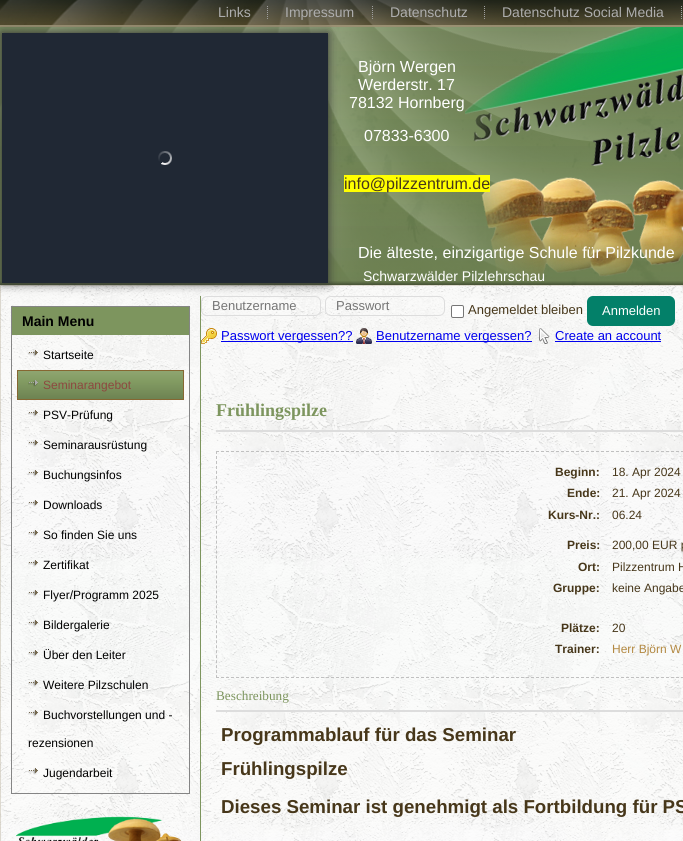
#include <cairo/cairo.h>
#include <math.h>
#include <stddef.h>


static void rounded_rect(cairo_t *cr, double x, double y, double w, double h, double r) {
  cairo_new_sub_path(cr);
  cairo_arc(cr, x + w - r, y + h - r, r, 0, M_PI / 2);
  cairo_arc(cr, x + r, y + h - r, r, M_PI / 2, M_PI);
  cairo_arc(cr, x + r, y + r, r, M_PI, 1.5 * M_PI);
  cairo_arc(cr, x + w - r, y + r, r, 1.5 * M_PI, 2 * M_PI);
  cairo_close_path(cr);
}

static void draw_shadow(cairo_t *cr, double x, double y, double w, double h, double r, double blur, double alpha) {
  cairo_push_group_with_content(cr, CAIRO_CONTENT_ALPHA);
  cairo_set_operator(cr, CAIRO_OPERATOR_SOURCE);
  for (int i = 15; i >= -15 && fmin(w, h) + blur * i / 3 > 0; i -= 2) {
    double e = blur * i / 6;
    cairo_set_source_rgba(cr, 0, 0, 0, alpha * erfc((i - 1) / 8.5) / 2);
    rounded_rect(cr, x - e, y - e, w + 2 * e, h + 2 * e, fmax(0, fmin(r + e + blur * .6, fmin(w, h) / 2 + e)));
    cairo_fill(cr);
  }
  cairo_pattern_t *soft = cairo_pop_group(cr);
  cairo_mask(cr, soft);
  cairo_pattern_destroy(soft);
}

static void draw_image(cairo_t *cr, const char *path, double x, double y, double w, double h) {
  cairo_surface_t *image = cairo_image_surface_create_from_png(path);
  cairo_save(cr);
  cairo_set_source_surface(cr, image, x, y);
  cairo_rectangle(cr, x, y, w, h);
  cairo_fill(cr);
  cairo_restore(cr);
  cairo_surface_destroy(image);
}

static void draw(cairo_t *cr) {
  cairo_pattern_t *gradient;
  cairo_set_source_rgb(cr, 1, 1, 1);
  cairo_paint(cr);
  draw_image(cr, "images/1.png", 0, 0, 683, 841);
  draw_image(cr, "images/6.png", 0, 25, 683, 342);
  cairo_set_source_rgba(cr, 159 / 255.0, 143 / 255.0, 115 / 255.0, 0.8);
  cairo_rectangle(cr, 0, 25, 683, 2);
  cairo_fill(cr);
  draw_image(cr, "images/8.png", 465, 27, 218, 254);
  cairo_save(cr);
  cairo_rectangle(cr, 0, 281, 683, 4);
  cairo_clip(cr);
  cairo_set_source_rgb(cr, 0, 0, 0);
  draw_shadow(cr, -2, 283, 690, 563, 0, 1.5, 0.39);
  cairo_restore(cr);
  cairo_set_source_rgba(cr, 1, 1, 1, 0.97);
  cairo_rectangle(cr, 0, 285, 683, 556);
  cairo_fill(cr);
  draw_image(cr, "images/9.png", 0, 285, 683, 556);
  cairo_rectangle(cr, 0.5, 285.5, 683, 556);
  cairo_set_source_rgba(cr, 159 / 255.0, 143 / 255.0, 115 / 255.0, 0.3);
  cairo_set_line_width(cr, 1);
  cairo_stroke(cr);
  cairo_set_source_rgb(cr, 125 / 255.0, 149 / 255.0, 94 / 255.0);
  cairo_rectangle(cr, 200, 296, 1, 545);
  cairo_fill(cr);
  rounded_rect(cr, 201.5, 296.5, 119, 19, 5.5);
  cairo_set_source_rgb(cr, 221 / 255.0, 221 / 255.0, 221 / 255.0);
  cairo_stroke(cr);
  rounded_rect(cr, 325.5, 296.5, 119, 19, 5.5);
  cairo_stroke(cr);
  cairo_set_source_rgb(cr, 51 / 255.0, 51 / 255.0, 51 / 255.0);
  draw_shadow(cr, 2, 33, 326, 250, 0, 5, 1);
  gradient = cairo_pattern_create_linear(500, 0, 500, 25);
  cairo_pattern_add_color_stop_rgba(gradient, 0, 0, 0, 0, 0.5);
  cairo_pattern_add_color_stop_rgba(gradient, 1, 89 / 255.0, 69 / 255.0, 33 / 255.0, 0.5);
  cairo_set_source(cr, gradient);
  cairo_pattern_destroy(gradient);
  cairo_rectangle(cr, 0, 0, 683, 25);
  cairo_fill(cr);
  draw_image(cr, "images/2.png", 267, 6, 1, 13);
  draw_image(cr, "images/3.png", 372, 6, 1, 13);
  draw_image(cr, "images/4.png", 484, 6, 1, 13);
  draw_image(cr, "images/5.png", 681, 6, 1, 13);
  cairo_set_source_rgb(cr, 32 / 255.0, 40 / 255.0, 52 / 255.0);
  cairo_rectangle(cr, 2, 33, 326, 250);
  cairo_fill(cr);
  draw_image(cr, "images/7.png", 158, 151, 14, 14);
  cairo_set_source_rgb(cr, 1, 1, 0);
  cairo_rectangle(cr, 344, 175, 146, 17);
  cairo_fill(cr);
  cairo_rectangle(cr, 11.5, 306.5, 178, 487);
  cairo_set_source_rgb(cr, 133 / 255.0, 133 / 255.0, 133 / 255.0);
  cairo_stroke(cr);
  cairo_set_source_rgb(cr, 125 / 255.0, 149 / 255.0, 94 / 255.0);
  cairo_rectangle(cr, 12, 307, 177, 28);
  cairo_fill(cr);
  draw_image(cr, "images/10.png", 28, 350, 10, 7);
  gradient = cairo_pattern_create_linear(101, 370, 101, 400);
  cairo_pattern_add_color_stop_rgba(gradient, 0, 144 / 255.0, 167 / 255.0, 114 / 255.0, 1);
  cairo_pattern_add_color_stop_rgba(gradient, 0.36, 131 / 255.0, 156 / 255.0, 99 / 255.0, 1);
  cairo_pattern_add_color_stop_rgba(gradient, 1, 108 / 255.0, 129 / 255.0, 81 / 255.0, 1);
  cairo_set_source(cr, gradient);
  cairo_pattern_destroy(gradient);
  cairo_rectangle(cr, 18, 371, 165, 28);
  cairo_fill(cr);
  cairo_rectangle(cr, 17.5, 370.5, 166, 29);
  cairo_set_source_rgb(cr, 134 / 255.0, 103 / 255.0, 50 / 255.0);
  cairo_stroke(cr);
  draw_image(cr, "images/11.png", 28, 380, 10, 7);
  draw_image(cr, "images/12.png", 28, 410, 10, 7);
  draw_image(cr, "images/13.png", 28, 440, 10, 7);
  draw_image(cr, "images/14.png", 28, 470, 10, 7);
  draw_image(cr, "images/15.png", 28, 500, 10, 7);
  draw_image(cr, "images/16.png", 28, 530, 10, 7);
  draw_image(cr, "images/17.png", 28, 560, 10, 7);
  draw_image(cr, "images/18.png", 28, 590, 10, 7);
  draw_image(cr, "images/19.png", 28, 620, 10, 7);
  draw_image(cr, "images/20.png", 28, 650, 10, 7);
  draw_image(cr, "images/21.png", 28, 680, 10, 7);
  draw_image(cr, "images/22.png", 28, 710, 10, 7);
  draw_image(cr, "images/23.png", 28, 768, 10, 7);
  draw_image(cr, "images/24.png", 16, 816, 166, 25);
  cairo_set_source_rgb(cr, 1, 1, 1);
  rounded_rect(cr, 451.5, 305.5, 12, 12, 1.5);
  cairo_fill_preserve(cr);
  cairo_set_source_rgb(cr, 118 / 255.0, 118 / 255.0, 118 / 255.0);
  cairo_stroke(cr);
  cairo_set_source_rgb(cr, 3 / 255.0, 128 / 255.0, 105 / 255.0);
  rounded_rect(cr, 587, 296, 88, 30, 6);
  cairo_fill(cr);
  draw_image(cr, "images/25.png", 201, 328, 16, 16);
  cairo_set_source_rgb(cr, 0, 0, 238 / 255.0);
  cairo_rectangle(cr, 221, 341, 132, 1);
  cairo_fill(cr);
  draw_image(cr, "images/26.png", 356, 328, 16, 16);
  cairo_rectangle(cr, 376, 341, 156, 1);
  cairo_fill(cr);
  draw_image(cr, "images/27.png", 539, 328, 11, 16);
  cairo_rectangle(cr, 555, 341, 106, 1);
  cairo_fill(cr);
  cairo_set_source_rgb(cr, 221 / 255.0, 221 / 255.0, 221 / 255.0);
  cairo_rectangle(cr, 216, 430, 467, 2);
  cairo_fill(cr);
  cairo_new_path(cr);
  cairo_move_to(cr, 216, 451.5);
  cairo_line_to(cr, 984, 451.5);
  cairo_set_source_rgb(cr, 192 / 255.0, 192 / 255.0, 192 / 255.0);
  cairo_set_dash(cr, (double[]){3, 2}, 2, 0);
  cairo_stroke(cr);
  cairo_new_path(cr);
  cairo_move_to(cr, 216, 677.5);
  cairo_line_to(cr, 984, 677.5);
  cairo_stroke(cr);
  cairo_new_path(cr);
  cairo_move_to(cr, 216.5, 451);
  cairo_line_to(cr, 216.5, 678);
  cairo_set_dash(cr, (double[]){3, 1.98}, 2, 0);
  cairo_stroke(cr);
  cairo_set_source_rgb(cr, 221 / 255.0, 221 / 255.0, 221 / 255.0);
  cairo_rectangle(cr, 216, 710, 467, 2);
  cairo_fill(cr);
  cairo_select_font_face(cr, "Liberation Sans", CAIRO_FONT_SLANT_NORMAL, CAIRO_FONT_WEIGHT_NORMAL);
  cairo_set_font_size(cr, 14);
  cairo_set_source_rgb(cr, 173 / 255.0, 173 / 255.0, 173 / 255.0);
  cairo_move_to(cr, 218, 17);
  cairo_show_text(cr, "Links");
  cairo_move_to(cr, 285, 17);
  cairo_show_text(cr, "Impressum");
  cairo_move_to(cr, 390, 17);
  cairo_show_text(cr, "Datenschutz");
  cairo_move_to(cr, 502, 17);
  cairo_show_text(cr, "Datenschutz Social Media");
  cairo_set_font_size(cr, 16);
  cairo_set_source_rgb(cr, 1, 1, 1);
  cairo_move_to(cr, 358, 72);
  cairo_show_text(cr, "Björn Wergen");
  cairo_move_to(cr, 358, 90);
  cairo_show_text(cr, "Werderstr. 17");
  cairo_move_to(cr, 349, 108);
  cairo_show_text(cr, "78132 Hornberg");
  cairo_move_to(cr, 364, 141);
  cairo_show_text(cr, "07833-6300");
  cairo_set_source_rgb(cr, 71 / 255.0, 55 / 255.0, 26 / 255.0);
  cairo_move_to(cr, 344, 189);
  cairo_show_text(cr, "info@pilzzentrum.de");
  cairo_set_source_rgb(cr, 1, 1, 1);
  cairo_move_to(cr, 358, 258);
  cairo_show_text(cr, "Die älteste, einzigartige Schule für Pilzkunde");
  cairo_set_font_size(cr, 14);
  cairo_move_to(cr, 363, 281);
  cairo_show_text(cr, "Schwarzwälder Pilzlehrschau");
  cairo_select_font_face(cr, "Liberation Sans", CAIRO_FONT_SLANT_NORMAL, CAIRO_FONT_WEIGHT_BOLD);
  cairo_set_source_rgb(cr, 0, 0, 0);
  cairo_move_to(cr, 22, 326);
  cairo_show_text(cr, "Main Menu");
  cairo_select_font_face(cr, "Liberation Sans", CAIRO_FONT_SLANT_NORMAL, CAIRO_FONT_WEIGHT_NORMAL);
  cairo_set_font_size(cr, 12);
  cairo_move_to(cr, 43, 359);
  cairo_show_text(cr, "Startseite");
  cairo_set_source_rgb(cr, 141 / 255.0, 72 / 255.0, 63 / 255.0);
  cairo_move_to(cr, 43, 389);
  cairo_show_text(cr, "Seminarangebot");
  cairo_set_source_rgb(cr, 0, 0, 0);
  cairo_move_to(cr, 43, 419);
  cairo_show_text(cr, "PSV-Prüfung");
  cairo_move_to(cr, 43, 449);
  cairo_show_text(cr, "Seminarausrüstung");
  cairo_move_to(cr, 43, 479);
  cairo_show_text(cr, "Buchungsinfos");
  cairo_move_to(cr, 43, 509);
  cairo_show_text(cr, "Downloads");
  cairo_move_to(cr, 43, 539);
  cairo_show_text(cr, "So finden Sie uns");
  cairo_move_to(cr, 43, 569);
  cairo_show_text(cr, "Zertifikat");
  cairo_move_to(cr, 43, 599);
  cairo_show_text(cr, "Flyer/Programm 2025");
  cairo_move_to(cr, 43, 629);
  cairo_show_text(cr, "Bildergalerie");
  cairo_move_to(cr, 43, 659);
  cairo_show_text(cr, "Über den Leiter");
  cairo_move_to(cr, 43, 689);
  cairo_show_text(cr, "Weitere Pilzschulen");
  cairo_move_to(cr, 43, 719);
  cairo_show_text(cr, "Buchvorstellungen und -");
  cairo_move_to(cr, 28, 747);
  cairo_show_text(cr, "rezensionen");
  cairo_move_to(cr, 43, 777);
  cairo_show_text(cr, "Jugendarbeit");
  cairo_set_font_size(cr, 13);
  cairo_set_source_rgb(cr, 117 / 255.0, 117 / 255.0, 117 / 255.0);
  cairo_move_to(cr, 212, 310);
  cairo_show_text(cr, "Benutzername");
  cairo_move_to(cr, 336, 310);
  cairo_show_text(cr, "Passwort");
  cairo_set_source_rgb(cr, 71 / 255.0, 55 / 255.0, 26 / 255.0);
  cairo_move_to(cr, 468, 314);
  cairo_show_text(cr, "Angemeldet bleiben");
  cairo_set_source_rgb(cr, 1, 1, 1);
  cairo_move_to(cr, 602, 315);
  cairo_show_text(cr, "Anmelden");
  cairo_set_source_rgb(cr, 0, 0, 238 / 255.0);
  cairo_move_to(cr, 221, 340);
  cairo_show_text(cr, "Passwort vergessen?\077");
  cairo_move_to(cr, 376, 340);
  cairo_show_text(cr, "Benutzername vergessen?");
  cairo_move_to(cr, 555, 340);
  cairo_show_text(cr, "Create an account");
  cairo_select_font_face(cr, "Liberation Serif", CAIRO_FONT_SLANT_NORMAL, CAIRO_FONT_WEIGHT_BOLD);
  cairo_set_font_size(cr, 18);
  cairo_set_source_rgb(cr, 125 / 255.0, 149 / 255.0, 94 / 255.0);
  cairo_move_to(cr, 216, 416);
  cairo_show_text(cr, "Frühlingspilze");
  cairo_select_font_face(cr, "Liberation Sans", CAIRO_FONT_SLANT_NORMAL, CAIRO_FONT_WEIGHT_BOLD);
  cairo_set_font_size(cr, 12);
  cairo_set_source_rgb(cr, 71 / 255.0, 55 / 255.0, 26 / 255.0);
  cairo_move_to(cr, 555, 476);
  cairo_show_text(cr, "Beginn:");
  cairo_select_font_face(cr, "Liberation Sans", CAIRO_FONT_SLANT_NORMAL, CAIRO_FONT_WEIGHT_NORMAL);
  cairo_move_to(cr, 612, 476);
  cairo_show_text(cr, "18. Apr 2024");
  cairo_select_font_face(cr, "Liberation Sans", CAIRO_FONT_SLANT_NORMAL, CAIRO_FONT_WEIGHT_BOLD);
  cairo_move_to(cr, 567, 497);
  cairo_show_text(cr, "Ende:");
  cairo_select_font_face(cr, "Liberation Sans", CAIRO_FONT_SLANT_NORMAL, CAIRO_FONT_WEIGHT_NORMAL);
  cairo_move_to(cr, 612, 497);
  cairo_show_text(cr, "21. Apr 2024");
  cairo_select_font_face(cr, "Liberation Sans", CAIRO_FONT_SLANT_NORMAL, CAIRO_FONT_WEIGHT_BOLD);
  cairo_move_to(cr, 548, 519);
  cairo_show_text(cr, "Kurs-Nr.:");
  cairo_select_font_face(cr, "Liberation Sans", CAIRO_FONT_SLANT_NORMAL, CAIRO_FONT_WEIGHT_NORMAL);
  cairo_move_to(cr, 612, 519);
  cairo_show_text(cr, "06.24");
  cairo_select_font_face(cr, "Liberation Sans", CAIRO_FONT_SLANT_NORMAL, CAIRO_FONT_WEIGHT_BOLD);
  cairo_move_to(cr, 567, 549);
  cairo_show_text(cr, "Preis:");
  cairo_select_font_face(cr, "Liberation Sans", CAIRO_FONT_SLANT_NORMAL, CAIRO_FONT_WEIGHT_NORMAL);
  cairo_move_to(cr, 612, 549);
  cairo_show_text(cr, "200,00 EUR p");
  cairo_select_font_face(cr, "Liberation Sans", CAIRO_FONT_SLANT_NORMAL, CAIRO_FONT_WEIGHT_BOLD);
  cairo_move_to(cr, 578, 571);
  cairo_show_text(cr, "Ort:");
  cairo_select_font_face(cr, "Liberation Sans", CAIRO_FONT_SLANT_NORMAL, CAIRO_FONT_WEIGHT_NORMAL);
  cairo_move_to(cr, 612, 571);
  cairo_show_text(cr, "Pilzzentrum H");
  cairo_select_font_face(cr, "Liberation Sans", CAIRO_FONT_SLANT_NORMAL, CAIRO_FONT_WEIGHT_BOLD);
  cairo_move_to(cr, 553, 592);
  cairo_show_text(cr, "Gruppe:");
  cairo_select_font_face(cr, "Liberation Sans", CAIRO_FONT_SLANT_NORMAL, CAIRO_FONT_WEIGHT_NORMAL);
  cairo_move_to(cr, 612, 592);
  cairo_show_text(cr, "keine Angabe");
  cairo_select_font_face(cr, "Liberation Sans", CAIRO_FONT_SLANT_NORMAL, CAIRO_FONT_WEIGHT_BOLD);
  cairo_move_to(cr, 561, 632);
  cairo_show_text(cr, "Plätze:");
  cairo_select_font_face(cr, "Liberation Sans", CAIRO_FONT_SLANT_NORMAL, CAIRO_FONT_WEIGHT_NORMAL);
  cairo_move_to(cr, 612, 632);
  cairo_show_text(cr, "20");
  cairo_select_font_face(cr, "Liberation Sans", CAIRO_FONT_SLANT_NORMAL, CAIRO_FONT_WEIGHT_BOLD);
  cairo_move_to(cr, 555, 653);
  cairo_show_text(cr, "Trainer:");
  cairo_select_font_face(cr, "Liberation Sans", CAIRO_FONT_SLANT_NORMAL, CAIRO_FONT_WEIGHT_NORMAL);
  cairo_set_source_rgb(cr, 179 / 255.0, 137 / 255.0, 66 / 255.0);
  cairo_move_to(cr, 612, 653);
  cairo_show_text(cr, "Herr Björn W");
  cairo_select_font_face(cr, "Liberation Serif", CAIRO_FONT_SLANT_NORMAL, CAIRO_FONT_WEIGHT_NORMAL);
  cairo_set_font_size(cr, 13.25);
  cairo_set_source_rgb(cr, 125 / 255.0, 149 / 255.0, 94 / 255.0);
  cairo_move_to(cr, 216, 700);
  cairo_show_text(cr, "Beschreibung");
  cairo_select_font_face(cr, "Liberation Sans", CAIRO_FONT_SLANT_NORMAL, CAIRO_FONT_WEIGHT_BOLD);
  cairo_set_font_size(cr, 18.7);
  cairo_set_source_rgb(cr, 71 / 255.0, 55 / 255.0, 26 / 255.0);
  cairo_move_to(cr, 221, 741);
  cairo_show_text(cr, "Programmablauf für das Seminar");
  cairo_move_to(cr, 221, 775);
  cairo_show_text(cr, "Frühlingspilze");
  cairo_move_to(cr, 221, 813);
  cairo_show_text(cr, "Dieses Seminar ist genehmigt als Fortbildung für PS");
}

int main(void) {
  cairo_surface_t *surface = cairo_image_surface_create(CAIRO_FORMAT_RGB24, 683, 841);
  cairo_t *cr = cairo_create(surface);
  cairo_font_options_t *options = cairo_font_options_create();
  cairo_font_options_set_hint_metrics(options, CAIRO_HINT_METRICS_OFF);
  cairo_font_options_set_hint_style(options, CAIRO_HINT_STYLE_NONE);
  cairo_set_font_options(cr, options);
  cairo_set_miter_limit(cr, 4);
  draw(cr);
  cairo_surface_write_to_png(surface, "out.png");
  cairo_font_options_destroy(options);
  cairo_destroy(cr);
  cairo_surface_destroy(surface);
  return 0;
}
